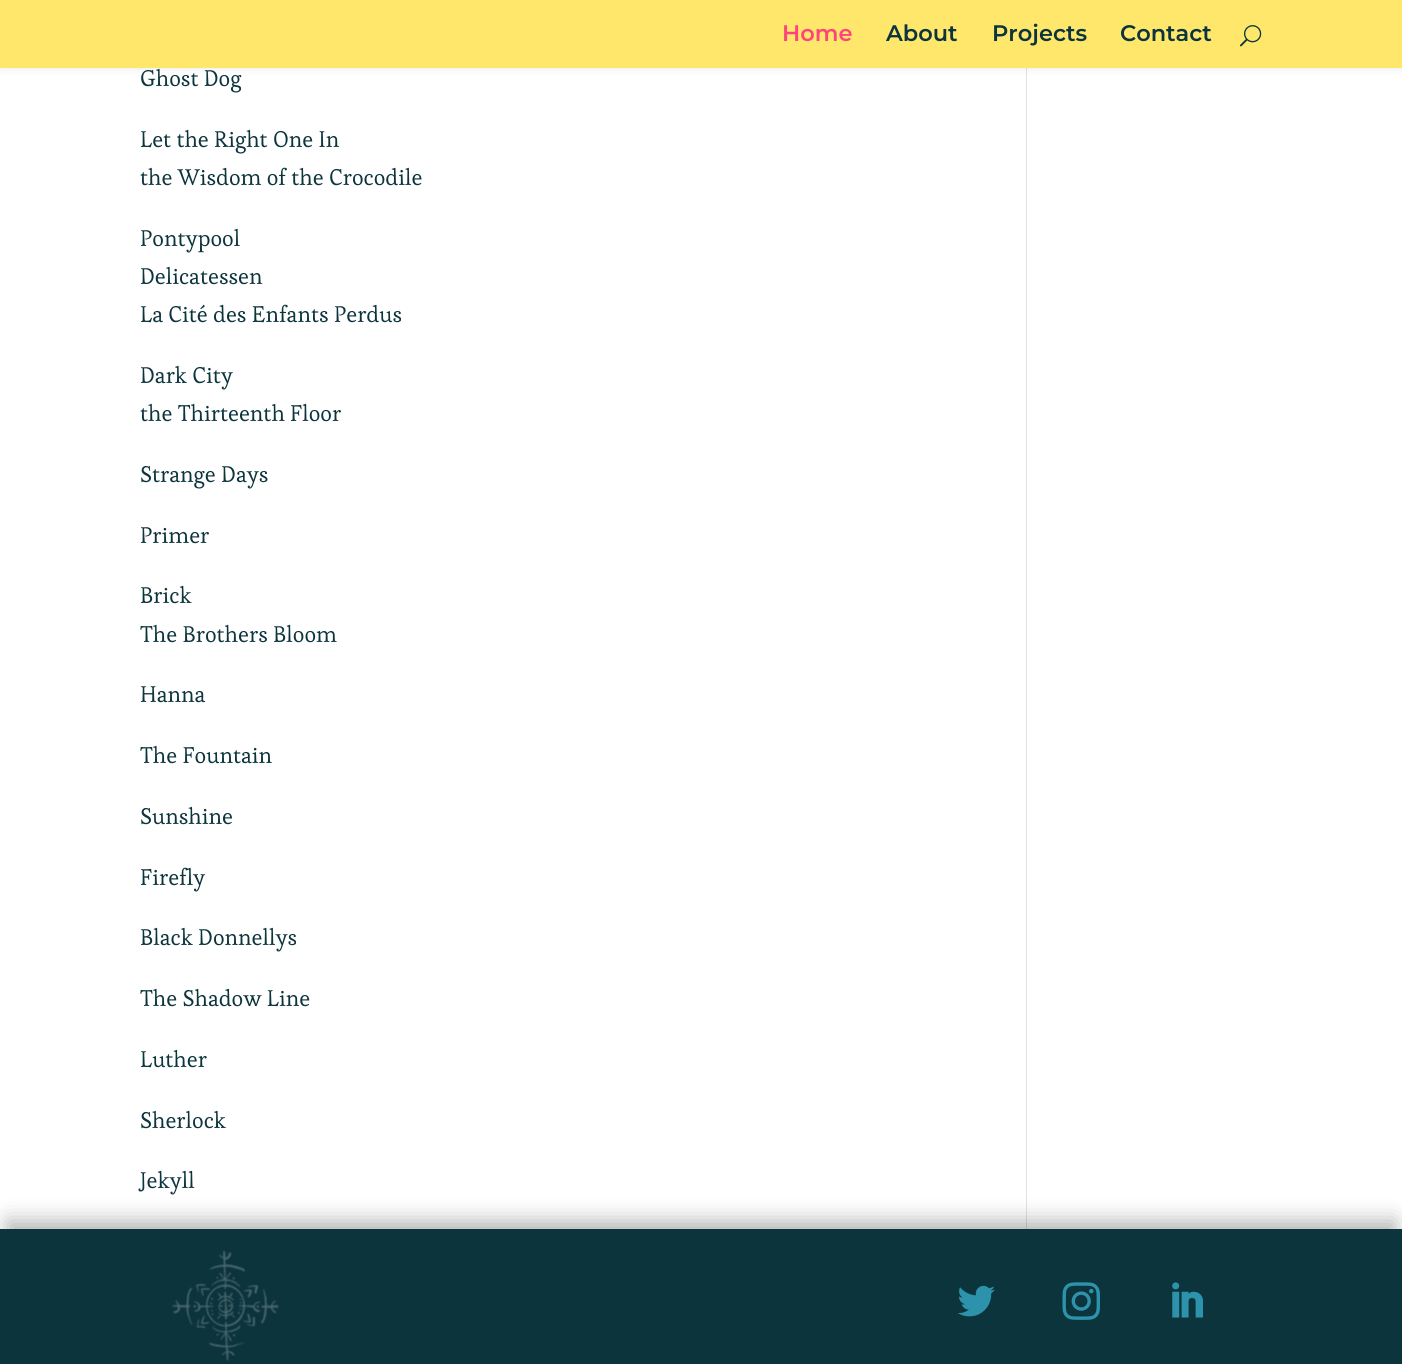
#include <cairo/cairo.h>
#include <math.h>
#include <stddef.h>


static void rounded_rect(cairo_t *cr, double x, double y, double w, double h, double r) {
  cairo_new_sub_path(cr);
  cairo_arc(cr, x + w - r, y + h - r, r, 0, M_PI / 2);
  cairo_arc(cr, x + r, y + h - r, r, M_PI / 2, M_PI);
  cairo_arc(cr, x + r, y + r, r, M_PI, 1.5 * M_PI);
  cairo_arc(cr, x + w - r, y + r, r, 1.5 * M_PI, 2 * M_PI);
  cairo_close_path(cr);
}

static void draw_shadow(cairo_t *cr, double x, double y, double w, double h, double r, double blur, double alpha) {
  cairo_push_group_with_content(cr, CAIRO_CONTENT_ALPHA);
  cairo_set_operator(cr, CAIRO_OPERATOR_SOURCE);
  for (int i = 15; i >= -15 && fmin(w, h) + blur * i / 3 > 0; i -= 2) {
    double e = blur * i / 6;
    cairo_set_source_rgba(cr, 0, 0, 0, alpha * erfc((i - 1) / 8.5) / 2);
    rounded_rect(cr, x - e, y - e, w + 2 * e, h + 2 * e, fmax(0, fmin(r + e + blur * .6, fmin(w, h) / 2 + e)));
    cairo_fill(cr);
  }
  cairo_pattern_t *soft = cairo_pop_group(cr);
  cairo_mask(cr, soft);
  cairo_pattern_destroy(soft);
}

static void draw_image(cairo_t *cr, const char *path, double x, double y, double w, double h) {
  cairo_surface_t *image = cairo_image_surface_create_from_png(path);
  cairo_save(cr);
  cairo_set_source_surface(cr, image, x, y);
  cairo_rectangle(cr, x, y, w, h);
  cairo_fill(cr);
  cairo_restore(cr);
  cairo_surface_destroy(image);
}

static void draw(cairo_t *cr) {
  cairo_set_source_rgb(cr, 1, 1, 1);
  cairo_paint(cr);
  cairo_set_source_rgb(cr, 226 / 255.0, 226 / 255.0, 226 / 255.0);
  cairo_rectangle(cr, 1026, 68, 1, 1161);
  cairo_fill(cr);
  cairo_set_source_rgb(cr, 0, 0, 0);
  draw_shadow(cr, 0, 0, 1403, 68, 0, 4.5, 0.1);
  cairo_set_source_rgb(cr, 1, 231 / 255.0, 107 / 255.0);
  cairo_rectangle(cr, 0, 0, 1402, 68);
  cairo_fill(cr);
  draw_image(cr, "images/1.png", 1240, 25, 22, 22);
  cairo_set_source_rgb(cr, 0, 0, 0);
  draw_shadow(cr, 8, 1221, 1387, 142, 0, 11, 0.3);
  cairo_set_source_rgb(cr, 12 / 255.0, 52 / 255.0, 61 / 255.0);
  cairo_rectangle(cr, 0, 1229, 1402, 135);
  cairo_fill(cr);
  draw_image(cr, "images/2.png", 172, 1250, 107, 111);
  draw_image(cr, "images/3.png", 958, 1285, 37, 32);
  draw_image(cr, "images/4.png", 1062, 1282, 38, 38);
  draw_image(cr, "images/5.png", 1172, 1282, 31, 36);
  cairo_select_font_face(cr, "Montserrat Thin", CAIRO_FONT_SLANT_NORMAL, CAIRO_FONT_WEIGHT_NORMAL);
  cairo_set_font_size(cr, 22.5);
  cairo_set_source_rgb(cr, 254 / 255.0, 67 / 255.0, 125 / 255.0);
  cairo_move_to(cr, 782, 41);
  cairo_show_text(cr, "Home");
  cairo_set_source_rgb(cr, 12 / 255.0, 52 / 255.0, 61 / 255.0);
  cairo_move_to(cr, 886, 41);
  cairo_show_text(cr, "About");
  cairo_move_to(cr, 992, 41);
  cairo_show_text(cr, "Projects");
  cairo_move_to(cr, 1120, 41);
  cairo_show_text(cr, "Contact");
  cairo_select_font_face(cr, "Esteban", CAIRO_FONT_SLANT_NORMAL, CAIRO_FONT_WEIGHT_NORMAL);
  cairo_move_to(cr, 140, 86);
  cairo_show_text(cr, "Ghost Dog");
  cairo_move_to(cr, 140, 147);
  cairo_show_text(cr, "Let the Right One In");
  cairo_move_to(cr, 140, 185);
  cairo_show_text(cr, "the Wisdom of the Crocodile");
  cairo_move_to(cr, 140, 246);
  cairo_show_text(cr, "Pontypool");
  cairo_move_to(cr, 140, 284);
  cairo_show_text(cr, "Delicatessen");
  cairo_move_to(cr, 140, 322);
  cairo_show_text(cr, "La Cité des Enfants Perdus");
  cairo_move_to(cr, 140, 383);
  cairo_show_text(cr, "Dark City");
  cairo_move_to(cr, 140, 421);
  cairo_show_text(cr, "the Thirteenth Floor");
  cairo_move_to(cr, 140, 482);
  cairo_show_text(cr, "Strange Days");
  cairo_move_to(cr, 140, 543);
  cairo_show_text(cr, "Primer");
  cairo_move_to(cr, 140, 603);
  cairo_show_text(cr, "Brick");
  cairo_move_to(cr, 140, 642);
  cairo_show_text(cr, "The Brothers Bloom");
  cairo_move_to(cr, 140, 702);
  cairo_show_text(cr, "Hanna");
  cairo_move_to(cr, 140, 763);
  cairo_show_text(cr, "The Fountain");
  cairo_move_to(cr, 140, 824);
  cairo_show_text(cr, "Sunshine");
  cairo_move_to(cr, 140, 885);
  cairo_show_text(cr, "Firefly");
  cairo_move_to(cr, 140, 945);
  cairo_show_text(cr, "Black Donnellys");
  cairo_move_to(cr, 140, 1006);
  cairo_show_text(cr, "The Shadow Line");
  cairo_move_to(cr, 140, 1067);
  cairo_show_text(cr, "Luther");
  cairo_move_to(cr, 140, 1128);
  cairo_show_text(cr, "Sherlock");
  cairo_move_to(cr, 140, 1188);
  cairo_show_text(cr, "Jekyll");
}

int main(void) {
  cairo_surface_t *surface = cairo_image_surface_create(CAIRO_FORMAT_RGB24, 1402, 1364);
  cairo_t *cr = cairo_create(surface);
  cairo_font_options_t *options = cairo_font_options_create();
  cairo_font_options_set_hint_metrics(options, CAIRO_HINT_METRICS_OFF);
  cairo_font_options_set_hint_style(options, CAIRO_HINT_STYLE_NONE);
  cairo_set_font_options(cr, options);
  cairo_set_miter_limit(cr, 4);
  draw(cr);
  cairo_surface_write_to_png(surface, "out.png");
  cairo_font_options_destroy(options);
  cairo_destroy(cr);
  cairo_surface_destroy(surface);
  return 0;
}
